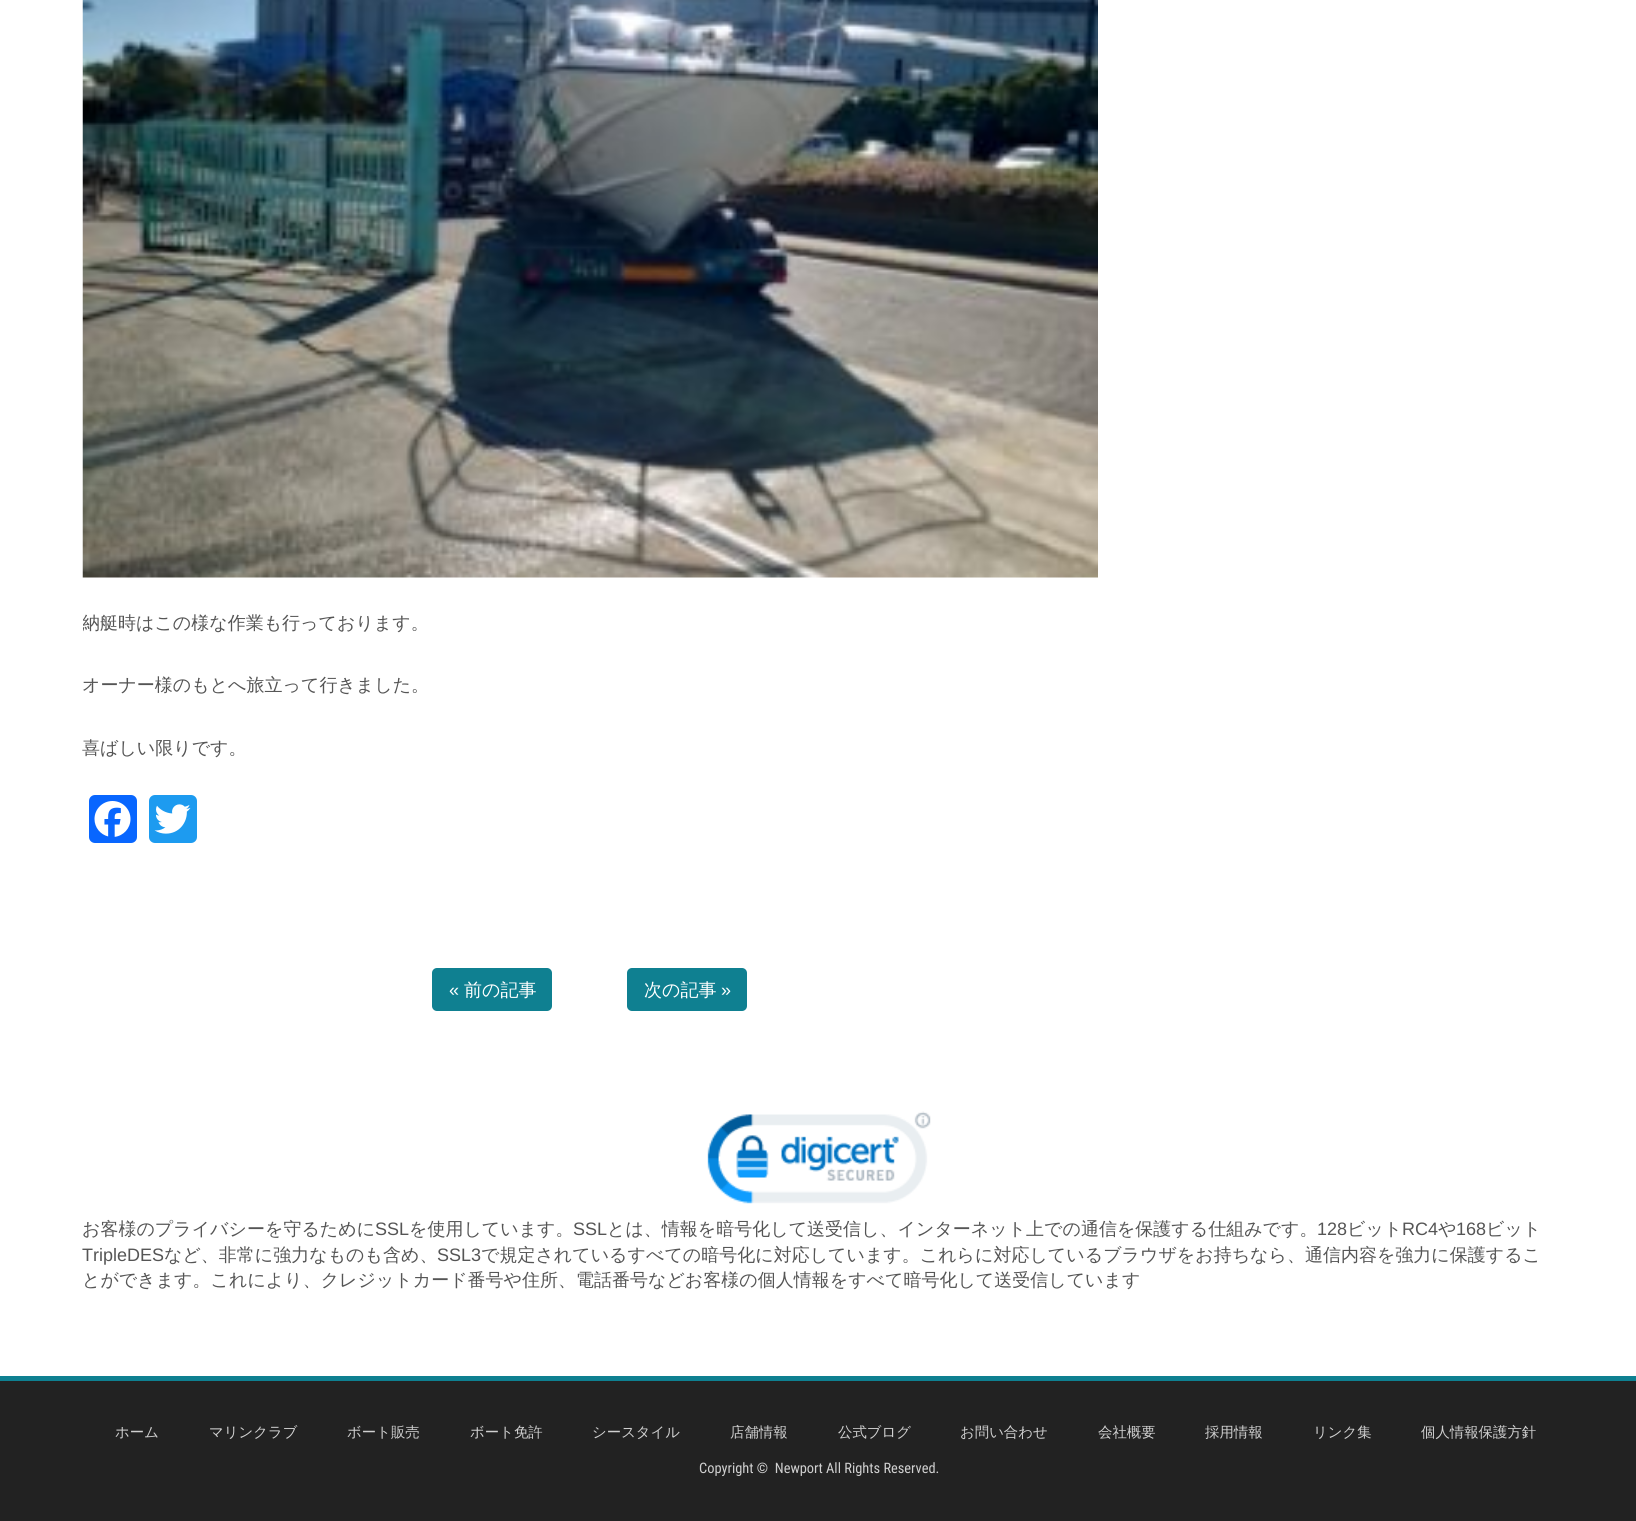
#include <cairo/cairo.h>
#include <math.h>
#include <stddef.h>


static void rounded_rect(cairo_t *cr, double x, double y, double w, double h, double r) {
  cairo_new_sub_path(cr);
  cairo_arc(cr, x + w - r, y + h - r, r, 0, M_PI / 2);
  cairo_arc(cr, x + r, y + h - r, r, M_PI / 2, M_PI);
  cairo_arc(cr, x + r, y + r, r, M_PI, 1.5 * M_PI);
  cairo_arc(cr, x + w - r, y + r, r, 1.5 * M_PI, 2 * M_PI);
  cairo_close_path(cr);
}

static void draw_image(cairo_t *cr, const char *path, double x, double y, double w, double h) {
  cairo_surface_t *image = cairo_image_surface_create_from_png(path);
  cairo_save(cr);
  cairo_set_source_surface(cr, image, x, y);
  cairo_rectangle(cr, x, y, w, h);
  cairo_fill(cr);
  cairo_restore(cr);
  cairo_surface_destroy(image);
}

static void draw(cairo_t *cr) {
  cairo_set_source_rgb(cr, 34 / 255.0, 34 / 255.0, 34 / 255.0);
  cairo_paint(cr);
  cairo_set_source_rgb(cr, 1, 1, 1);
  cairo_rectangle(cr, 0, 0, 1636, 1376);
  cairo_fill(cr);
  draw_image(cr, "images/1.png", 82, 0, 1016, 578);
  cairo_set_source_rgb(cr, 8 / 255.0, 102 / 255.0, 1);
  rounded_rect(cr, 89, 795, 48, 48, 6);
  cairo_fill(cr);
  draw_image(cr, "images/2.png", 94, 801, 37, 36);
  cairo_set_source_rgb(cr, 29 / 255.0, 155 / 255.0, 240 / 255.0);
  rounded_rect(cr, 149, 795, 48, 48, 6);
  cairo_fill(cr);
  draw_image(cr, "images/3.png", 154, 804, 37, 30);
  cairo_set_source_rgb(cr, 15 / 255.0, 128 / 255.0, 145 / 255.0);
  rounded_rect(cr, 432, 968, 120, 43, 5);
  cairo_fill(cr);
  rounded_rect(cr, 627, 968, 120, 43, 5);
  cairo_fill(cr);
  draw_image(cr, "images/4.png", 707, 1111, 224, 93);
  cairo_set_source_rgb(cr, 14 / 255.0, 128 / 255.0, 145 / 255.0);
  cairo_rectangle(cr, 0, 1376, 1636, 5);
  cairo_fill(cr);
  cairo_save(cr);
  cairo_rectangle(cr, 83, 0, 1015, 875);
  cairo_clip(cr);
  cairo_select_font_face(cr, "WenQuanYi Zen Hei Medium", CAIRO_FONT_SLANT_NORMAL, CAIRO_FONT_WEIGHT_NORMAL);
  cairo_set_font_size(cr, 18);
  cairo_set_source_rgb(cr, 85 / 255.0, 85 / 255.0, 85 / 255.0);
  cairo_move_to(cr, 82, 629);
  cairo_show_text(cr, "納艇時はこの様な作業も行っております。");
  cairo_restore(cr);
  cairo_select_font_face(cr, "WenQuanYi Zen Hei Medium", CAIRO_FONT_SLANT_NORMAL, CAIRO_FONT_WEIGHT_NORMAL);
  cairo_set_font_size(cr, 18);
  cairo_set_source_rgb(cr, 85 / 255.0, 85 / 255.0, 85 / 255.0);
  cairo_move_to(cr, 82, 691);
  cairo_show_text(cr, "オーナー様のもとへ旅立って行きました。");
  cairo_move_to(cr, 82, 754);
  cairo_show_text(cr, "喜ばしい限りです。");
  cairo_select_font_face(cr, "Liberation Sans", CAIRO_FONT_SLANT_NORMAL, CAIRO_FONT_WEIGHT_NORMAL);
  cairo_set_source_rgb(cr, 1, 1, 1);
  cairo_move_to(cr, 449, 996);
  cairo_show_text(cr, "«");
  cairo_select_font_face(cr, "WenQuanYi Zen Hei Medium", CAIRO_FONT_SLANT_NORMAL, CAIRO_FONT_WEIGHT_NORMAL);
  cairo_move_to(cr, 464, 996);
  cairo_show_text(cr, "前の記事");
  cairo_move_to(cr, 644, 996);
  cairo_show_text(cr, "次の記事");
  cairo_select_font_face(cr, "Liberation Sans", CAIRO_FONT_SLANT_NORMAL, CAIRO_FONT_WEIGHT_NORMAL);
  cairo_move_to(cr, 721, 996);
  cairo_show_text(cr, "»");
  cairo_select_font_face(cr, "WenQuanYi Zen Hei Medium", CAIRO_FONT_SLANT_NORMAL, CAIRO_FONT_WEIGHT_NORMAL);
  cairo_set_source_rgb(cr, 85 / 255.0, 85 / 255.0, 85 / 255.0);
  cairo_move_to(cr, 82, 1235);
  cairo_show_text(cr, "お客様のプライバシーを守るために");
  cairo_select_font_face(cr, "Liberation Sans", CAIRO_FONT_SLANT_NORMAL, CAIRO_FONT_WEIGHT_NORMAL);
  cairo_move_to(cr, 375, 1235);
  cairo_show_text(cr, "SSL");
  cairo_select_font_face(cr, "WenQuanYi Zen Hei Medium", CAIRO_FONT_SLANT_NORMAL, CAIRO_FONT_WEIGHT_NORMAL);
  cairo_move_to(cr, 409, 1235);
  cairo_show_text(cr, "を使用しています。");
  cairo_select_font_face(cr, "Liberation Sans", CAIRO_FONT_SLANT_NORMAL, CAIRO_FONT_WEIGHT_NORMAL);
  cairo_move_to(cr, 573, 1235);
  cairo_show_text(cr, "SSL");
  cairo_select_font_face(cr, "WenQuanYi Zen Hei Medium", CAIRO_FONT_SLANT_NORMAL, CAIRO_FONT_WEIGHT_NORMAL);
  cairo_move_to(cr, 607, 1235);
  cairo_show_text(cr, "とは、情報を暗号化して送受信し、インターネット上での通信を保護する仕組みです。");
  cairo_select_font_face(cr, "Liberation Sans", CAIRO_FONT_SLANT_NORMAL, CAIRO_FONT_WEIGHT_NORMAL);
  cairo_move_to(cr, 1317, 1235);
  cairo_show_text(cr, "128");
  cairo_select_font_face(cr, "WenQuanYi Zen Hei Medium", CAIRO_FONT_SLANT_NORMAL, CAIRO_FONT_WEIGHT_NORMAL);
  cairo_move_to(cr, 1347, 1235);
  cairo_show_text(cr, "ビット");
  cairo_select_font_face(cr, "Liberation Sans", CAIRO_FONT_SLANT_NORMAL, CAIRO_FONT_WEIGHT_NORMAL);
  cairo_move_to(cr, 1402, 1235);
  cairo_show_text(cr, "RC4");
  cairo_select_font_face(cr, "WenQuanYi Zen Hei Medium", CAIRO_FONT_SLANT_NORMAL, CAIRO_FONT_WEIGHT_NORMAL);
  cairo_move_to(cr, 1438, 1235);
  cairo_show_text(cr, "や");
  cairo_select_font_face(cr, "Liberation Sans", CAIRO_FONT_SLANT_NORMAL, CAIRO_FONT_WEIGHT_NORMAL);
  cairo_move_to(cr, 1456, 1235);
  cairo_show_text(cr, "168");
  cairo_select_font_face(cr, "WenQuanYi Zen Hei Medium", CAIRO_FONT_SLANT_NORMAL, CAIRO_FONT_WEIGHT_NORMAL);
  cairo_move_to(cr, 1486, 1235);
  cairo_show_text(cr, "ビット");
  cairo_select_font_face(cr, "Liberation Sans", CAIRO_FONT_SLANT_NORMAL, CAIRO_FONT_WEIGHT_NORMAL);
  cairo_move_to(cr, 82, 1261);
  cairo_show_text(cr, "TripleDES");
  cairo_select_font_face(cr, "WenQuanYi Zen Hei Medium", CAIRO_FONT_SLANT_NORMAL, CAIRO_FONT_WEIGHT_NORMAL);
  cairo_move_to(cr, 164, 1261);
  cairo_show_text(cr, "など、非常に強力なものも含め、");
  cairo_select_font_face(cr, "Liberation Sans", CAIRO_FONT_SLANT_NORMAL, CAIRO_FONT_WEIGHT_NORMAL);
  cairo_move_to(cr, 437, 1261);
  cairo_show_text(cr, "SSL3");
  cairo_select_font_face(cr, "WenQuanYi Zen Hei Medium", CAIRO_FONT_SLANT_NORMAL, CAIRO_FONT_WEIGHT_NORMAL);
  cairo_move_to(cr, 481, 1261);
  cairo_show_text(cr, "で規定されているすべての暗号化に対応しています。これらに対応しているブラウザをお持ちなら、通信内容を強力に保護するこ");
  cairo_move_to(cr, 82, 1286);
  cairo_show_text(cr, "とができます。これにより、クレジットカード番号や住所、電話番号などお客様の個人情報をすべて暗号化して送受信しています");
  cairo_set_font_size(cr, 14.4);
  cairo_set_source_rgb(cr, 208 / 255.0, 208 / 255.0, 208 / 255.0);
  cairo_move_to(cr, 115, 1437);
  cairo_show_text(cr, "ホーム");
  cairo_move_to(cr, 209, 1437);
  cairo_show_text(cr, "マリンクラブ");
  cairo_move_to(cr, 347, 1437);
  cairo_show_text(cr, "ボート販売");
  cairo_move_to(cr, 470, 1437);
  cairo_show_text(cr, "ボート免許");
  cairo_move_to(cr, 592, 1437);
  cairo_show_text(cr, "シースタイル");
  cairo_move_to(cr, 730, 1437);
  cairo_show_text(cr, "店舗情報");
  cairo_move_to(cr, 838, 1437);
  cairo_show_text(cr, "公式ブログ");
  cairo_move_to(cr, 960, 1437);
  cairo_show_text(cr, "お問い合わせ");
  cairo_move_to(cr, 1098, 1437);
  cairo_show_text(cr, "会社概要");
  cairo_move_to(cr, 1205, 1437);
  cairo_show_text(cr, "採用情報");
  cairo_move_to(cr, 1313, 1437);
  cairo_show_text(cr, "リンク集");
  cairo_move_to(cr, 1421, 1437);
  cairo_show_text(cr, "個人情報保護方針");
  cairo_select_font_face(cr, "Roboto Condensed", CAIRO_FONT_SLANT_NORMAL, CAIRO_FONT_WEIGHT_NORMAL);
  cairo_move_to(cr, 699, 1473);
  cairo_show_text(cr, "Copyright ©  Newport All Rights Reserved.");
}

int main(void) {
  cairo_surface_t *surface = cairo_image_surface_create(CAIRO_FORMAT_RGB24, 1636, 1521);
  cairo_t *cr = cairo_create(surface);
  cairo_font_options_t *options = cairo_font_options_create();
  cairo_font_options_set_hint_metrics(options, CAIRO_HINT_METRICS_OFF);
  cairo_font_options_set_hint_style(options, CAIRO_HINT_STYLE_NONE);
  cairo_set_font_options(cr, options);
  cairo_set_miter_limit(cr, 4);
  draw(cr);
  cairo_surface_write_to_png(surface, "out.png");
  cairo_font_options_destroy(options);
  cairo_destroy(cr);
  cairo_surface_destroy(surface);
  return 0;
}
